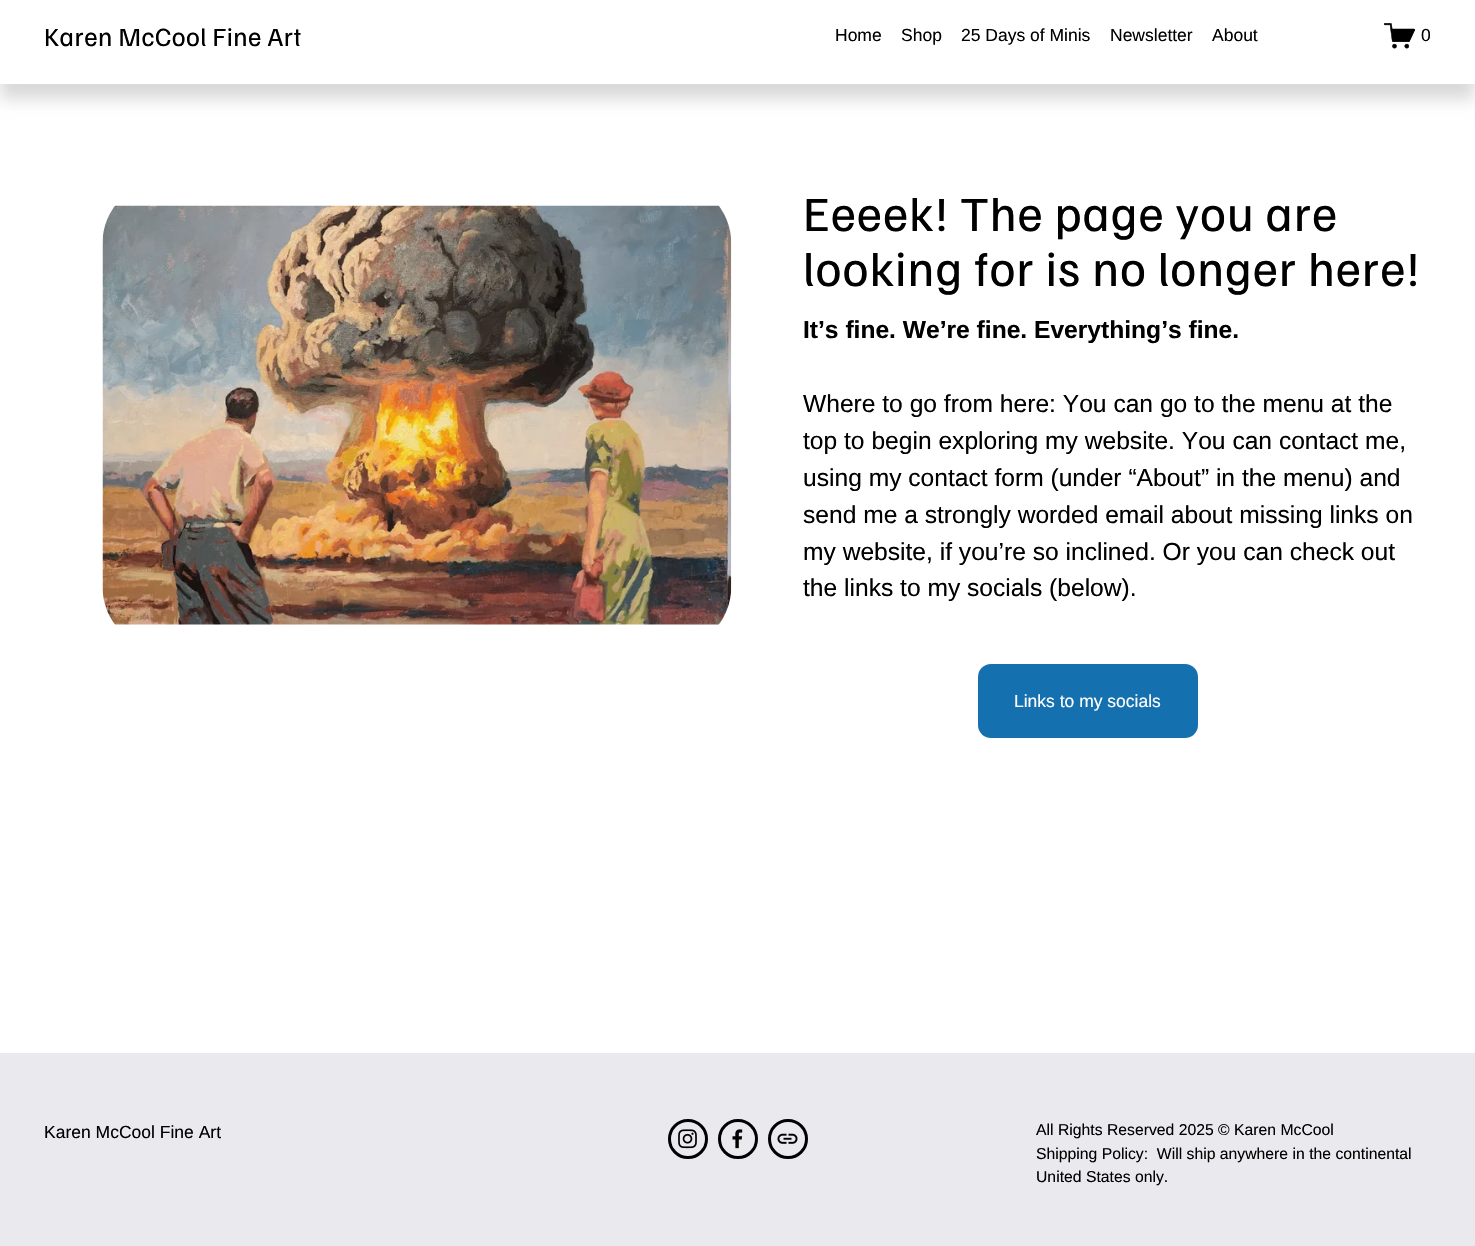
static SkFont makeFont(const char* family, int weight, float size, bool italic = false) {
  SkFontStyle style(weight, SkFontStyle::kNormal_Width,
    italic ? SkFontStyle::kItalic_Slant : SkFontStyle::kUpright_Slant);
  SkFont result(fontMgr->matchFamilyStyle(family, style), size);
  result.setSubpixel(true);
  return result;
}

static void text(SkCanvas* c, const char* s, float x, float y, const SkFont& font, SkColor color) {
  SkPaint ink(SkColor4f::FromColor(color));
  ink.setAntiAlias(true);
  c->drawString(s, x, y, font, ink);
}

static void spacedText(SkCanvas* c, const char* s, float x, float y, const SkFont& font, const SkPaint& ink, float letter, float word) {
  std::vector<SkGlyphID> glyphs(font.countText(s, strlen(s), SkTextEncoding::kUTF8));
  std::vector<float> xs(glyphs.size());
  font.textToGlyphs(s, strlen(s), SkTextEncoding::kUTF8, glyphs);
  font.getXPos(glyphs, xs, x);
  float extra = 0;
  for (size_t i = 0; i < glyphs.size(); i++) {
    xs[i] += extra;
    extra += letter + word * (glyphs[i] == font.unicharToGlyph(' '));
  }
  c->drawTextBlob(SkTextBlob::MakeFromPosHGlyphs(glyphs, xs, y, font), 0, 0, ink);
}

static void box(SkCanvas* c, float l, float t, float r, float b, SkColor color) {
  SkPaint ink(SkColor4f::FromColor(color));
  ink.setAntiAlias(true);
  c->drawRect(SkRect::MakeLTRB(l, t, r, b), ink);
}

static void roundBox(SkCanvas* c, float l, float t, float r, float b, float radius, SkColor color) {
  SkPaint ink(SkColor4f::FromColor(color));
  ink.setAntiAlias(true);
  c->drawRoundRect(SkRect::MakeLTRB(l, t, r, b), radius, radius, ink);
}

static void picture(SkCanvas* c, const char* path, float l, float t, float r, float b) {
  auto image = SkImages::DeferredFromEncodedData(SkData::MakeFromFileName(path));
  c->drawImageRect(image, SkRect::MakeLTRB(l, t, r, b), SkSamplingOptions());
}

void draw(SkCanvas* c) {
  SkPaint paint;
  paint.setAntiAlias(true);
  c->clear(0xffffffff);
  c->save();
  c->clipPath(SkPathBuilder(SkPathFillType::kEvenOdd).moveTo(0, 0).lineTo(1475, 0).lineTo(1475, 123).lineTo(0, 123).close().moveTo(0, -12).lineTo(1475, -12).lineTo(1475, 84).lineTo(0, 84).close().detach(), true);
  paint.setColor(0xffd9d9d9);
  paint.setMaskFilter(SkMaskFilter::MakeBlur(kNormal_SkBlurStyle, 7.5f));
  c->drawRect(SkRect::MakeLTRB(0, 3, 1475, 99), paint);
  paint.setMaskFilter(nullptr);
  c->restore();
  SkFont face1 = makeFont("Familjen Grotesk", 400, 26.25f);
  paint.setColor(0xff000000);
  spacedText(c, "Karen McCool Fine Art", 44, 46, face1, paint, 0.5f, 0);
  SkFont face2 = makeFont("Arimo", 400, 17.5f);
  text(c, "Home", 835, 41, face2, 0xff000000);
  text(c, "Shop", 901, 41, face2, 0xff000000);
  text(c, "25 Days of Minis", 961, 41, face2, 0xff000000);
  text(c, "Newsletter", 1110, 41, face2, 0xff000000);
  text(c, "About", 1212, 41, face2, 0xff000000);
  picture(c, "img_01.png", 1384, 23, 1415, 49);
  text(c, "0", 1421, 41, face2, 0xff000000);
  picture(c, "img_02.png", 102, 205, 732, 625);
  SkFont face3 = makeFont("Familjen Grotesk", 400, 49.4f);
  spacedText(c, "Eeeek! The page you are", 803, 231, face3, paint, 1, 0);
  spacedText(c, "looking for is no longer here!", 803, 286, face3, paint, 1, 0);
  SkFont face4 = makeFont("Arimo", 700, 24.6f);
  text(c, "It’s fine. We’re fine. Everything’s fine.", 803, 338, face4, 0xff000000);
  SkFont face5 = makeFont("Arimo", 400, 24.6f);
  text(c, "Where to go from here: You can go to the menu at the", 803, 412, face5, 0xff000000);
  text(c, "top to begin exploring my website. You can contact me,", 803, 449, face5, 0xff000000);
  text(c, "using my contact form (under “About” in the menu) and", 803, 486, face5, 0xff000000);
  text(c, "send me a strongly worded email about missing links on", 803, 523, face5, 0xff000000);
  text(c, "my website, if you’re so inclined. Or you can check out", 803, 560, face5, 0xff000000);
  text(c, "the links to my socials (below).", 803, 596, face5, 0xff000000);
  roundBox(c, 978, 664, 1198, 738, 13, 0xff1470af);
  text(c, "Links to my socials", 1014, 707, face2, 0xffffffff);
  box(c, 0, 1053, 1475, 1246, 0xffeaeaee);
  text(c, "Karen McCool Fine Art", 44, 1138, face2, 0xff000000);
  paint.setStyle(SkPaint::kStroke_Style);
  paint.setStrokeWidth(3);
  c->drawCircle(688, 1139, 18.5f, paint);
  picture(c, "img_03.png", 678, 1129, 697, 1149);
  c->drawCircle(738, 1139, 18.5f, paint);
  picture(c, "img_04.png", 732, 1129, 743, 1149);
  c->drawCircle(788, 1139, 18.5f, paint);
  picture(c, "img_05.png", 777, 1133, 798, 1144);
  SkFont face6 = makeFont("Arimo", 400, 15.75f);
  text(c, "All Rights Reserved 2025 © Karen McCool", 1036, 1135, face6, 0xff000000);
  text(c, "Shipping Policy:  Will ship anywhere in the continental", 1036, 1159, face6, 0xff000000);
  text(c, "United States only.", 1036, 1182, face6, 0xff000000);
}
